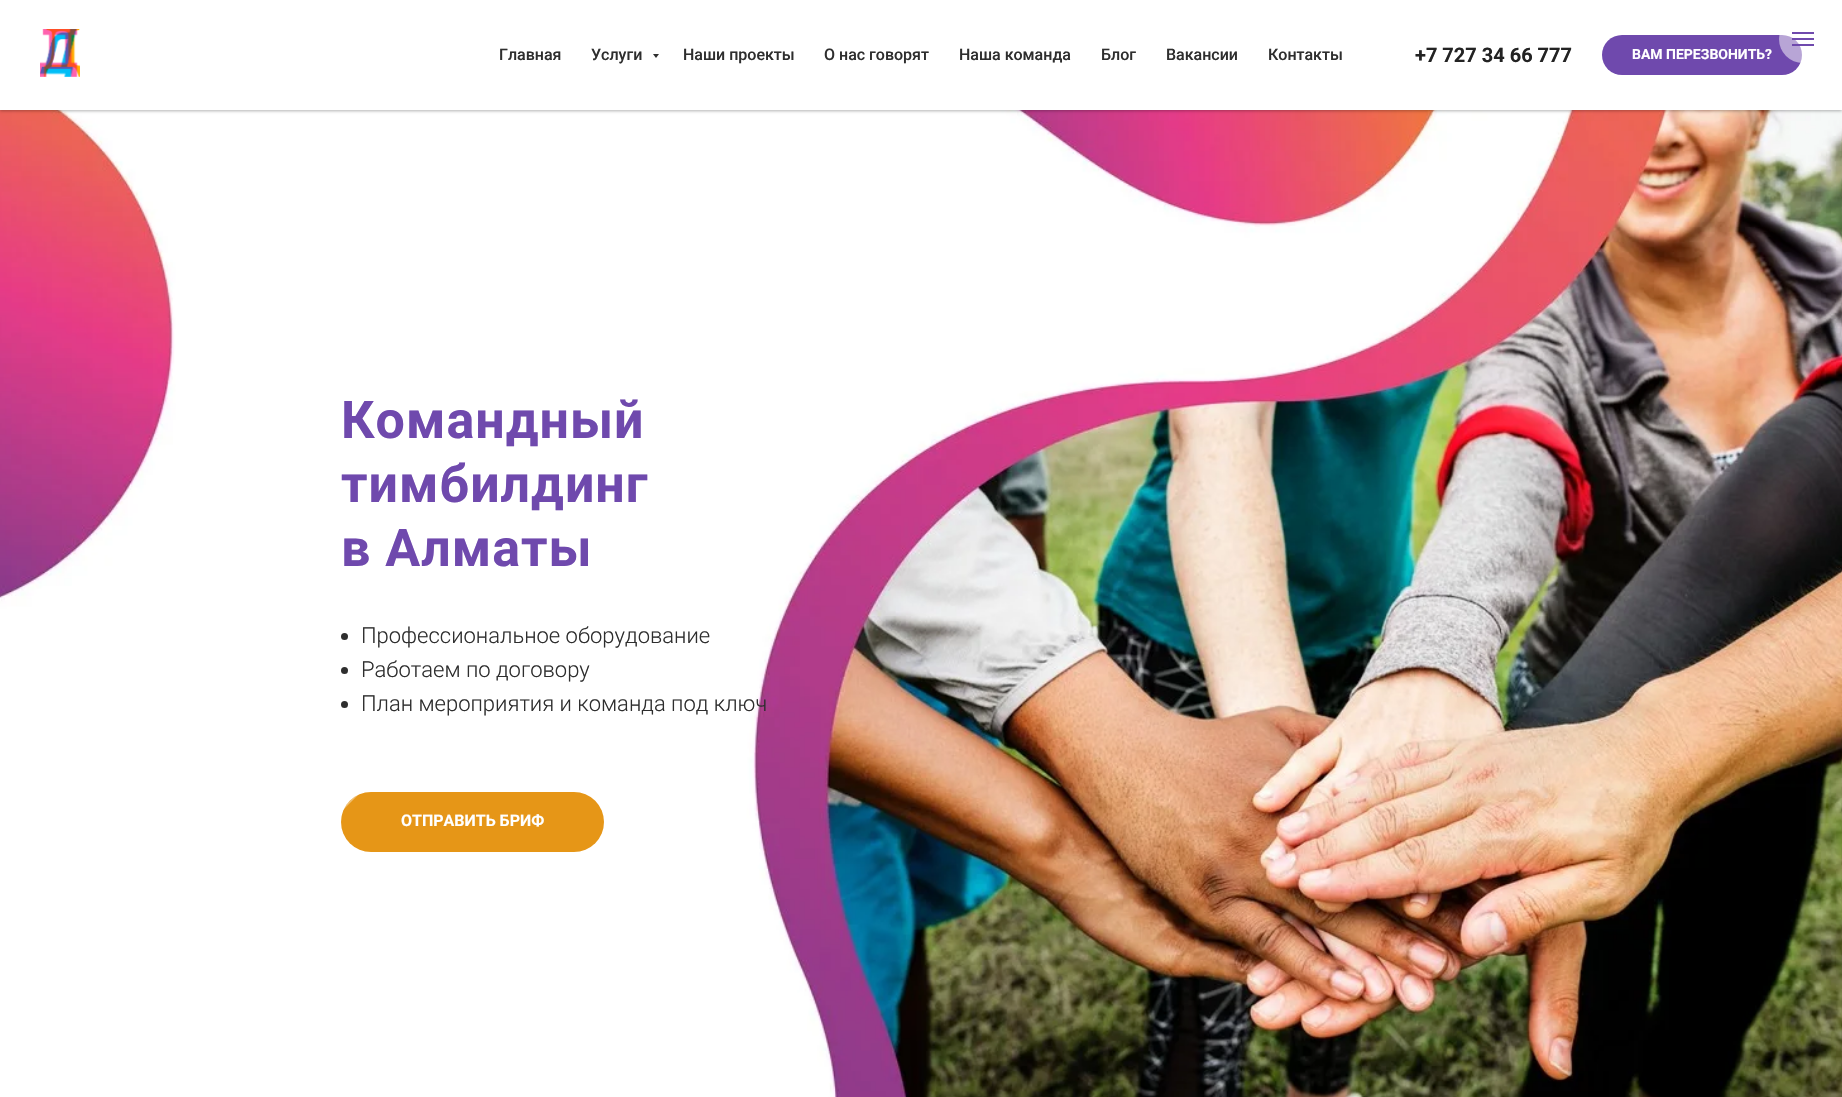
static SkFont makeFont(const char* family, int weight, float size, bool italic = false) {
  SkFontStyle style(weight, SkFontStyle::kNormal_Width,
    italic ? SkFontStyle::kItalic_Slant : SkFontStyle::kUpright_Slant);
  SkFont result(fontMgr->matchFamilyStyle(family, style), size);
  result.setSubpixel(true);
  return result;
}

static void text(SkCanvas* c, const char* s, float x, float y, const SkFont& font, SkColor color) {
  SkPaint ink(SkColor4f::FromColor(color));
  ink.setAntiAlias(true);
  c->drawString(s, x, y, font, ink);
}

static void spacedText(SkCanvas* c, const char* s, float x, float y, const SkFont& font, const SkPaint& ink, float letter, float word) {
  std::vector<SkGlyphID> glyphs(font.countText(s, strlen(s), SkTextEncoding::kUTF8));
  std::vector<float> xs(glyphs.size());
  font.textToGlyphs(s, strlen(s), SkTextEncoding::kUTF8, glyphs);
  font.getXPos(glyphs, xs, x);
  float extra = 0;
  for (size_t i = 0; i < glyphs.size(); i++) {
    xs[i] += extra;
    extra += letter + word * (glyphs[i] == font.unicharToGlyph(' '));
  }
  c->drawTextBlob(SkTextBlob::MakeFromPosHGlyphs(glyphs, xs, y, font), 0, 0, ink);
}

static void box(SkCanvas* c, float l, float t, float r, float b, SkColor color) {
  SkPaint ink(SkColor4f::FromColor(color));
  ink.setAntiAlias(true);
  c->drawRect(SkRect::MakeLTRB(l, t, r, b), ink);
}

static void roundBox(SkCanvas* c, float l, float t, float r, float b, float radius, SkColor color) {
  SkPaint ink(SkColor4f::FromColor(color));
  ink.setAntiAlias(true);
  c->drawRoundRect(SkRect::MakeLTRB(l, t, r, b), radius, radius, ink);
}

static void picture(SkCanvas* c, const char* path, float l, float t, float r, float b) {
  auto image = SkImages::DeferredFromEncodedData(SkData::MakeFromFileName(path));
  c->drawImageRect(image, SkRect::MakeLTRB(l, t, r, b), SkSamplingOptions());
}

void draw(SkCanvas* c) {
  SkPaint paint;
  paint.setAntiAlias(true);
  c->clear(0xffffffff);
  picture(c, "img_02.png", 0, 110, 1842, 1097);
  paint.setColor(0x4d000000);
  paint.setMaskFilter(SkMaskFilter::MakeBlur(kNormal_SkBlurStyle, 1.5f));
  c->drawRect(SkRect::MakeLTRB(0, 1, 1842, 111), paint);
  paint.setMaskFilter(nullptr);
  box(c, 0, 0, 1842, 110, 0xffffffff);
  picture(c, "img_01.png", 40, 29, 80, 77);
  SkFont face1 = makeFont("Roboto", 500, 16);
  text(c, "Главная", 499, 60, face1, 0xff2e2e2e);
  text(c, "Услуги", 591, 60, face1, 0xff2e2e2e);
  paint.setColor(0xff2e2e2e);
  c->drawPath(SkPathBuilder().moveTo(653, 54).lineTo(659, 54).lineTo(656, 58).close().detach(), paint);
  text(c, "Наши проекты", 683, 60, face1, 0xff2e2e2e);
  text(c, "О нас говорят", 824, 60, face1, 0xff2e2e2e);
  text(c, "Наша команда", 959, 60, face1, 0xff2e2e2e);
  text(c, "Блог", 1101, 60, face1, 0xff2e2e2e);
  text(c, "Вакансии", 1166, 60, face1, 0xff2e2e2e);
  text(c, "Контакты", 1268, 60, face1, 0xff2e2e2e);
  SkFont face2 = makeFont("Roboto", 700, 20);
  text(c, "+7 727 34 66 777", 1415, 62, face2, 0xff232323);
  roundBox(c, 1602, 35, 1802, 75, 20, 0xff6f49ad);
  SkFont face3 = makeFont("Roboto", 700, 14);
  text(c, "ВАМ ПЕРЕЗВОНИТЬ?", 1632, 59, face3, 0xffffffff);
  paint.setColor(0x80ffffff);
  c->drawCircle(1803, 39, 24, paint);
  box(c, 1792, 32, 1814, 34, 0xff6f49ad);
  box(c, 1792, 38, 1814, 40, 0xff6f49ad);
  box(c, 1792, 44, 1814, 46, 0xff6f49ad);
  SkFont face4 = makeFont("Roboto", 700, 52);
  paint.setColor(0xff6f49ad);
  spacedText(c, "Командный", 341, 438, face4, paint, 1, 0);
  spacedText(c, "тимбилдинг", 341, 502, face4, paint, 1, 0);
  spacedText(c, "в Алматы", 341, 566, face4, paint, 1, 0);
  paint.setColor(0xff2e2e2e);
  c->drawCircle(344.5f, 636.5f, 3.5f, paint);
  SkFont face5 = makeFont("Roboto", 300, 22);
  text(c, "Профессиональное оборудование", 361, 643, face5, 0xff2e2e2e);
  c->drawCircle(344.5f, 670.5f, 3.5f, paint);
  text(c, "Работаем по договору", 361, 677, face5, 0xff2e2e2e);
  c->drawCircle(344.5f, 704.5f, 3.5f, paint);
  text(c, "План мероприятия и команда под ключ", 361, 711, face5, 0xff2e2e2e);
  roundBox(c, 341, 792, 604, 852, 30, 0xffe69617);
  {
    const SkColor colors[] = {0x1affffff, 0x66ffffff};
    const float stops[] = {0, 1};
    const SkPoint ends[] = {{286, 822}, {331, 822}};
    paint.setShader(SkGradientShader::MakeLinear(ends, colors, stops, 2, SkTileMode::kClamp));
    paint.setAlpha(255);
  }
  c->drawPath(SkPathBuilder().moveTo(358, 795).lineTo(344, 809).cubicTo(347, 803, 352, 798, 358, 795).close().detach(), paint);
  SkFont face6 = makeFont("Roboto", 700, 16);
  text(c, "ОТПРАВИТЬ БРИФ", 401, 826, face6, 0xffffffff);
}
